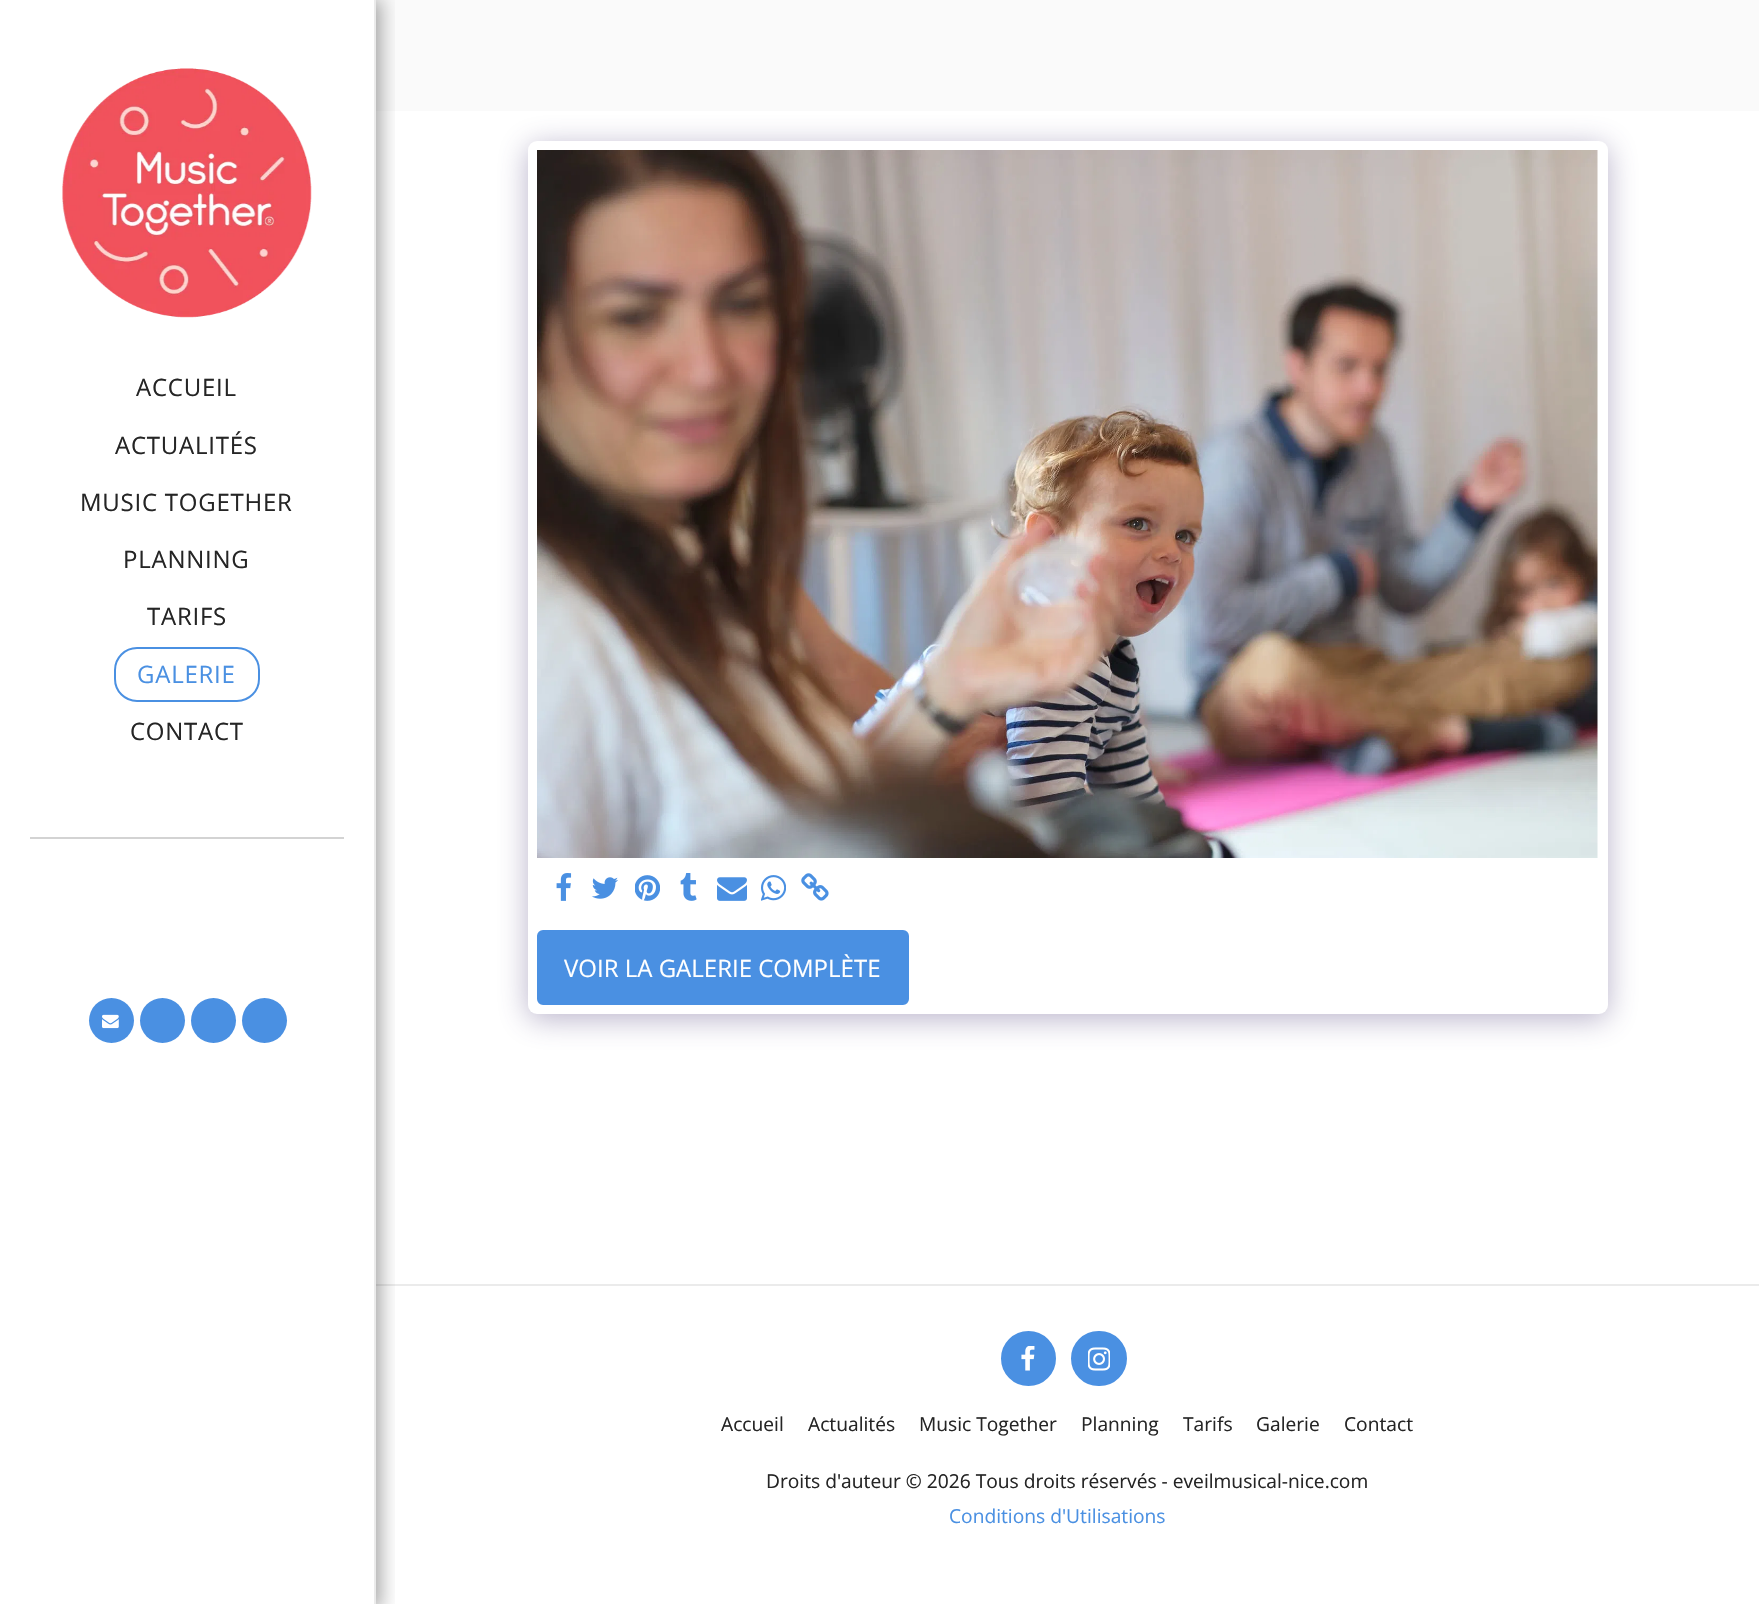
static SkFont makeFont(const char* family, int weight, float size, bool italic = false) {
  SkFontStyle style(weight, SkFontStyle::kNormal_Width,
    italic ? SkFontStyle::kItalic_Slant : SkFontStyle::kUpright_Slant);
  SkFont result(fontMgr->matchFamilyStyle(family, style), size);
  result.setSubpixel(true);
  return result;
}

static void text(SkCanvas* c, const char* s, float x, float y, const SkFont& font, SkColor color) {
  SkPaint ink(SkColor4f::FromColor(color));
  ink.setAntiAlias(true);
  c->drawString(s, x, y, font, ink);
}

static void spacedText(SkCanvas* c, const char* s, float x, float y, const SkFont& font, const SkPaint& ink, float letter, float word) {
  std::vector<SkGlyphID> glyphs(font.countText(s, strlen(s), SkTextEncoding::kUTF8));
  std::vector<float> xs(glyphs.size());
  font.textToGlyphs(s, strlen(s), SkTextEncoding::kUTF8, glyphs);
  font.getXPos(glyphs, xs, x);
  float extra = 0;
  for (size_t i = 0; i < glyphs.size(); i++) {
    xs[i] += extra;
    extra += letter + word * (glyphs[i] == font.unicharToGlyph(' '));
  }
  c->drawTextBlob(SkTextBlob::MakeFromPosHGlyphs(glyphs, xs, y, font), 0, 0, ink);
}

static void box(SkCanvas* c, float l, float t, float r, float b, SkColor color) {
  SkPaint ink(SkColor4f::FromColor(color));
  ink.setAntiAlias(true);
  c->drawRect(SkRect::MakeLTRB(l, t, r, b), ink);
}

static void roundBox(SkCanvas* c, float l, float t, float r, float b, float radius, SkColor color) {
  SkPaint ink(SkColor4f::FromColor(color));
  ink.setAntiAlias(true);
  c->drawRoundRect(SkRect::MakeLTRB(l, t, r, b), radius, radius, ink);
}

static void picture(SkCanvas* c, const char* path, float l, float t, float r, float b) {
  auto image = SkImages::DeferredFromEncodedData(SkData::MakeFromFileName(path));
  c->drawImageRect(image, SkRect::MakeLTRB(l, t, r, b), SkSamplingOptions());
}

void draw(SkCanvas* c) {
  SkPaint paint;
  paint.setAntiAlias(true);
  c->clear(0xffffffff);
  box(c, 376, 0, 1759, 111, 0xfffafafa);
  box(c, 375, 1284, 1759, 1286, 0xffebebeb);
  c->save();
  c->clipRect(SkRect::MakeLTRB(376, 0, 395, 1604));
  paint.setColor(0x59000000);
  paint.setMaskFilter(SkMaskFilter::MakeBlur(kNormal_SkBlurStyle, 9));
  c->drawRect(SkRect::MakeLTRB(0, -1, 381, 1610), paint);
  paint.setMaskFilter(nullptr);
  c->restore();
  box(c, 374, 0, 376, 1604, 0xffebebeb);
  picture(c, "img_01.png", 62, 68, 312, 318);
  SkFont face1 = makeFont("Open Sans", 400, 24);
  paint.setColor(0xff252525);
  spacedText(c, "ACCUEIL", 136, 396, face1, paint, 0.75f, 0);
  spacedText(c, "ACTUALITÉS", 115, 454, face1, paint, 0.75f, 0);
  spacedText(c, "MUSIC TOGETHER", 80, 511, face1, paint, 0.75f, 0);
  spacedText(c, "PLANNING", 123, 568, face1, paint, 0.75f, 0);
  spacedText(c, "TARIFS", 147, 625, face1, paint, 0.75f, 0);
  paint.setStyle(SkPaint::kStroke_Style);
  paint.setStrokeWidth(2);
  paint.setColor(0xff4a90e2);
  c->drawRoundRect(SkRect::MakeLTRB(115, 648, 259, 701), 22, 22, paint);
  paint.setStyle(SkPaint::kFill_Style);
  spacedText(c, "GALERIE", 137, 683, face1, paint, 0.75f, 0);
  paint.setColor(0xff252525);
  spacedText(c, "CONTACT", 130, 740, face1, paint, 0.75f, 0);
  box(c, 30, 837, 344, 839, 0xffd3d3d3);
  paint.setColor(0xff4a90e2);
  c->drawCircle(111.5f, 1020.5f, 22.5f, paint);
  picture(c, "img_02.png", 102, 1014, 119, 1029);
  c->drawCircle(162.5f, 1020.5f, 22.5f, paint);
  c->drawCircle(213.5f, 1020.5f, 22.5f, paint);
  c->drawCircle(264.5f, 1020.5f, 22.5f, paint);
  paint.setColor(0x664d3f7a);
  paint.setMaskFilter(SkMaskFilter::MakeBlur(kNormal_SkBlurStyle, 15));
  c->drawRoundRect(SkRect::MakeLTRB(528, 146, 1608, 1019), 9, 9, paint);
  paint.setMaskFilter(nullptr);
  roundBox(c, 528, 141, 1608, 1014, 9, 0xffffffff);
  picture(c, "img_03.png", 537, 150, 1598, 858);
  picture(c, "img_04.png", 556, 873, 572, 901);
  picture(c, "img_05.png", 591, 877, 618, 899);
  picture(c, "img_06.png", 635, 875, 660, 901);
  picture(c, "img_07.png", 680, 873, 697, 901);
  picture(c, "img_08.png", 717, 877, 747, 901);
  picture(c, "img_09.png", 761, 875, 786, 901);
  picture(c, "img_10.png", 801, 873, 829, 901);
  paint.setColor(0xff4a90e2);
  c->drawRoundRect(SkRect::MakeLTRB(538, 931, 908, 1004), 5, 5, paint);
  paint.setStyle(SkPaint::kStroke_Style);
  c->drawRoundRect(SkRect::MakeLTRB(538, 931, 908, 1004), 5, 5, paint);
  text(c, "VOIR LA GALERIE COMPLÈTE", 564, 977, face1, 0xffffffff);
  paint.setStyle(SkPaint::kFill_Style);
  c->drawCircle(1028.5f, 1358.5f, 26.5f, paint);
  paint.setStyle(SkPaint::kStroke_Style);
  c->drawCircle(1028.5f, 1358.5f, 26.5f, paint);
  picture(c, "img_11.png", 1021, 1346, 1035, 1371);
  paint.setStyle(SkPaint::kFill_Style);
  c->drawRoundRect(SkRect::MakeLTRB(1072, 1332, 1126, 1385), 26.5f, 26.5f, paint);
  paint.setStyle(SkPaint::kStroke_Style);
  c->drawRoundRect(SkRect::MakeLTRB(1072, 1332, 1126, 1385), 26.5f, 26.5f, paint);
  picture(c, "img_12.png", 1088, 1347, 1110, 1371);
  SkFont face2 = makeFont("Open Sans", 400, 19.2f);
  text(c, "Accueil", 721, 1431, face2, 0xff252525);
  text(c, "Actualités", 808, 1431, face2, 0xff252525);
  text(c, "Music Together", 919, 1431, face2, 0xff252525);
  text(c, "Planning", 1081, 1431, face2, 0xff252525);
  text(c, "Tarifs", 1183, 1431, face2, 0xff252525);
  text(c, "Galerie", 1256, 1431, face2, 0xff252525);
  text(c, "Contact", 1344, 1431, face2, 0xff252525);
  text(c, "Droits d'auteur © 2026 Tous droits réservés - eveilmusical-nice.com", 766, 1488, face2, 0xff252525);
  text(c, "Conditions d'Utilisations", 949, 1523, face2, 0xff4a90e2);
}
